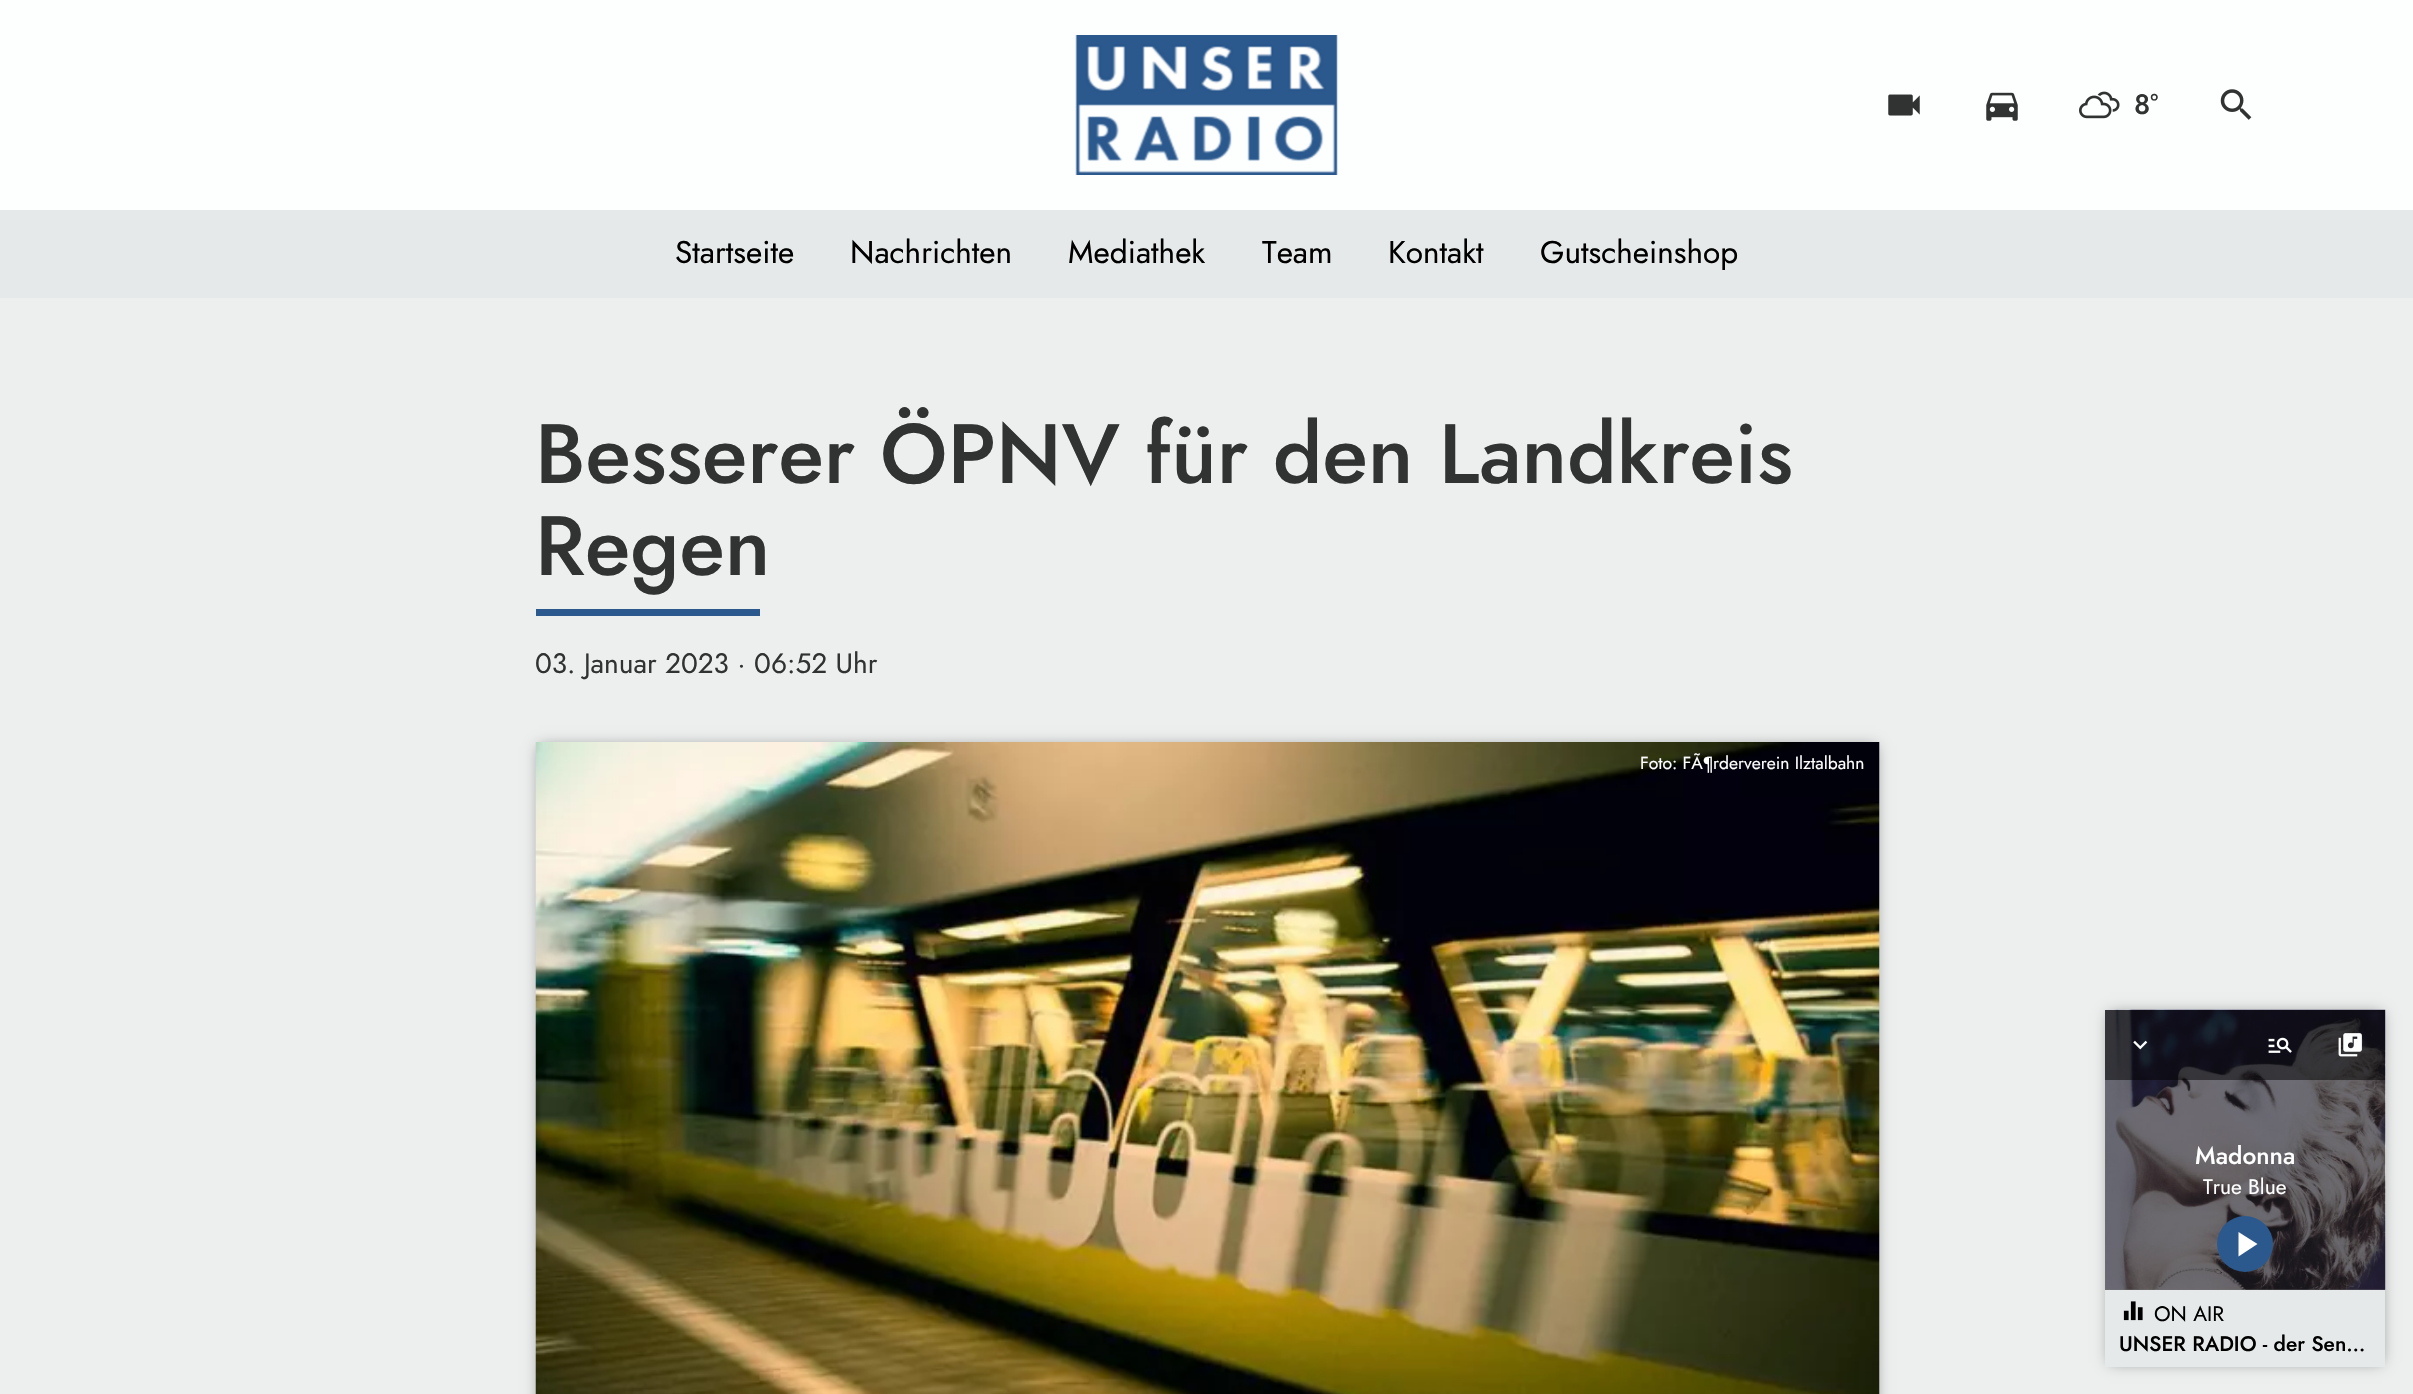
static SkFont makeFont(const char* family, int weight, float size, bool italic = false) {
  SkFontStyle style(weight, SkFontStyle::kNormal_Width,
    italic ? SkFontStyle::kItalic_Slant : SkFontStyle::kUpright_Slant);
  SkFont result(fontMgr->matchFamilyStyle(family, style), size);
  result.setSubpixel(true);
  return result;
}

static void text(SkCanvas* c, const char* s, float x, float y, const SkFont& font, SkColor color) {
  SkPaint ink(SkColor4f::FromColor(color));
  ink.setAntiAlias(true);
  c->drawString(s, x, y, font, ink);
}

static void box(SkCanvas* c, float l, float t, float r, float b, SkColor color) {
  SkPaint ink(SkColor4f::FromColor(color));
  ink.setAntiAlias(true);
  c->drawRect(SkRect::MakeLTRB(l, t, r, b), ink);
}

static void picture(SkCanvas* c, const char* path, float l, float t, float r, float b) {
  auto image = SkImages::DeferredFromEncodedData(SkData::MakeFromFileName(path));
  c->drawImageRect(image, SkRect::MakeLTRB(l, t, r, b), SkSamplingOptions());
}

void draw(SkCanvas* c) {
  SkPaint paint;
  paint.setAntiAlias(true);
  c->clear(0xfffdffff);
  picture(c, "img_01.png", 1075, 35, 1338, 175);
  picture(c, "img_02.png", 1888, 94, 1920, 116);
  picture(c, "img_03.png", 1986, 92, 2018, 121);
  picture(c, "img_04.png", 2079, 91, 2120, 119);
  SkFont face1 = makeFont("Jost", 500, 28);
  text(c, "8°", 2134, 114, face1, 0xff313333);
  picture(c, "img_05.png", 2220, 89, 2252, 120);
  box(c, 0, 210, 2413, 298, 0xffe5e9e9);
  SkFont face2 = makeFont("Jost", 400, 31.5f);
  text(c, "Startseite", 675, 263, face2, 0xff000000);
  text(c, "Nachrichten", 850, 263, face2, 0xff000000);
  text(c, "Mediathek", 1068, 263, face2, 0xff000000);
  text(c, "Team", 1262, 263, face2, 0xff000000);
  text(c, "Kontakt", 1388, 263, face2, 0xff000000);
  text(c, "Gutscheinshop", 1540, 263, face2, 0xff000000);
  box(c, 0, 298, 2413, 1394, 0xffedefef);
  SkFont face3 = makeFont("Jost", 500, 84);
  text(c, "Besserer ÖPNV für den Landkreis", 535, 483, face3, 0xff313333);
  text(c, "Regen", 535, 575, face3, 0xff313333);
  box(c, 536, 609, 760, 616, 0xff2b598e);
  SkFont face4 = makeFont("Jost", 400, 28);
  text(c, "03. Januar 2023 · 06:52 Uhr", 535, 673, face4, 0xff313333);
  paint.setColor(0x66000000);
  paint.setMaskFilter(SkMaskFilter::MakeBlur(kNormal_SkBlurStyle, 7));
  c->drawRect(SkRect::MakeLTRB(539, 746, 1876, 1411), paint);
  paint.setMaskFilter(nullptr);
  picture(c, "img_06.png", 535, 742, 1880, 1394);
  SkFont face5 = makeFont("Jost", 400, 17.5f);
  text(c, "Foto: FÃ¶rderverein Ilztalbahn", 1640, 769, face5, 0xffffffff);
  paint.setMaskFilter(SkMaskFilter::MakeBlur(kNormal_SkBlurStyle, 7));
  c->drawRect(SkRect::MakeLTRB(2109, 1013, 2382, 1363), paint);
  paint.setMaskFilter(nullptr);
  box(c, 2105, 1010, 2385, 1290, 0xffe8ebeb);
  picture(c, "img_10.png", 2105, 1009, 2386, 1290);
  box(c, 2105, 1010, 2385, 1290, 0x80000000);
  box(c, 2105, 1010, 2385, 1080, 0x80000000);
  picture(c, "img_07.png", 2133, 1040, 2148, 1050);
  picture(c, "img_08.png", 2268, 1037, 2292, 1053);
  picture(c, "img_09.png", 2338, 1033, 2362, 1057);
  SkFont face6 = makeFont("Jost", 500, 24.5f);
  text(c, "Madonna", 2195, 1164, face6, 0xffffffff);
  SkFont face7 = makeFont("Jost", 400, 21);
  text(c, "True Blue", 2203, 1194, face7, 0xffffffff);
  paint.setColor(0xff2b598e);
  c->drawCircle(2245, 1244, 28, paint);
  paint.setColor(0xffffffff);
  c->drawPath(SkPathBuilder().moveTo(2238.5f, 1232).lineTo(2257.5f, 1244).lineTo(2238.5f, 1256.5f).close().detach(), paint);
  box(c, 2105, 1290, 2385, 1367, 0xffe5e9e9);
  picture(c, "img_11.png", 2123, 1301, 2143, 1321);
  text(c, "ON AIR", 2154, 1321, face7, 0xff000000);
  SkFont face8 = makeFont("Jost", 500, 21);
  text(c, "UNSER RADIO - der Sen…", 2119, 1351, face8, 0xff000000);
}
